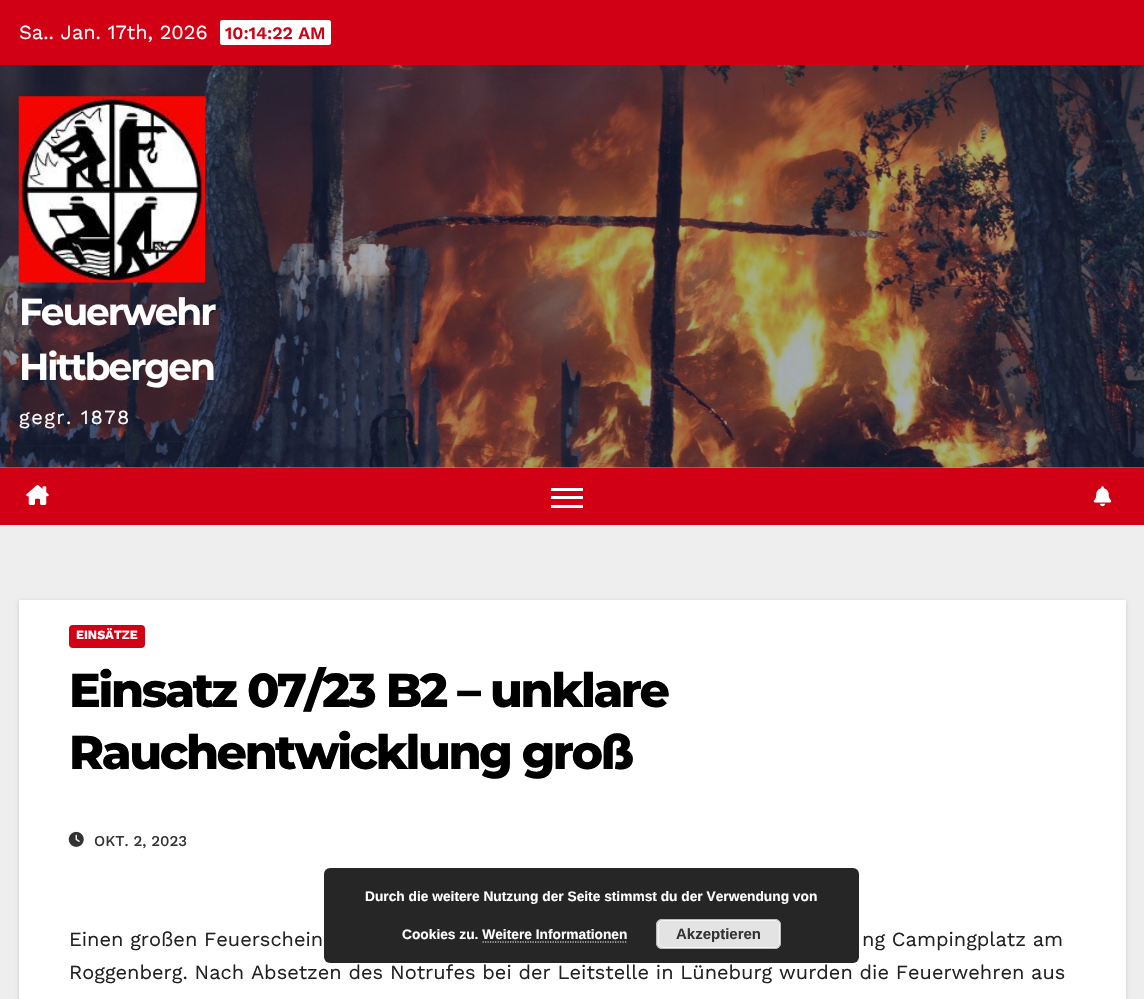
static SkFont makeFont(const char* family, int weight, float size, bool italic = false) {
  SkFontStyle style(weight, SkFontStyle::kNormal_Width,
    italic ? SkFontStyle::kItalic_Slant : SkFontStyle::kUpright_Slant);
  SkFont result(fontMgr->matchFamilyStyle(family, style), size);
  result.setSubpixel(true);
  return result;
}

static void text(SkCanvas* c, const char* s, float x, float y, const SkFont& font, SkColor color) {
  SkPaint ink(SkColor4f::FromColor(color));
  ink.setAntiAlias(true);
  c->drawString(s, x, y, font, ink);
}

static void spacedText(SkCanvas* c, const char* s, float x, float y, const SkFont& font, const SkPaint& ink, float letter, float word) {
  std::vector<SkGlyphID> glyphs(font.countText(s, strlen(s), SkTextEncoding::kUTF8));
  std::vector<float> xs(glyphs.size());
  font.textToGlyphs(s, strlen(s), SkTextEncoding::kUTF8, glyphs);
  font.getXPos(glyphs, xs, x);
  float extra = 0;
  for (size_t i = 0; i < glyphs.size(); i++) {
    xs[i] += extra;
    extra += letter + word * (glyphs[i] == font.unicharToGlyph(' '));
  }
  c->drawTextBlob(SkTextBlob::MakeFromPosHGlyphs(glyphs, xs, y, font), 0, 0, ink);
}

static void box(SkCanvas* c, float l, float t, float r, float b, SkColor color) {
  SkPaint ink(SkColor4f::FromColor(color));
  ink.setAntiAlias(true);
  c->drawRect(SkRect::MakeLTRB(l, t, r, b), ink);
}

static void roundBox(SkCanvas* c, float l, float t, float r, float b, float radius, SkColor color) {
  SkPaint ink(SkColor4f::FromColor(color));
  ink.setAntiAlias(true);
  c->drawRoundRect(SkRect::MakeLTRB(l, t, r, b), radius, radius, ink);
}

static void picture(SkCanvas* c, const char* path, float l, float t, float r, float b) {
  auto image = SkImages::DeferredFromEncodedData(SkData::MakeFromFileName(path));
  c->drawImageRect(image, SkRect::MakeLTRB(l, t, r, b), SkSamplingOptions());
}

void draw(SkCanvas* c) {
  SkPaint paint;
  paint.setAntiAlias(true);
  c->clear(0xffeeeeee);
  box(c, 0, 467, 1144, 468, 0xff9ca2b3);
  box(c, 0, 0, 1144, 65, 0xffd10014);
  SkFont face1 = makeFont("Work Sans", 400, 20);
  text(c, "Sa.. Jan. 17th, 2026", 19, 39, face1, 0xffffffff);
  roundBox(c, 220, 20, 331, 45, 2.5f, 0xffffffff);
  SkFont face2 = makeFont("Work Sans", 600, 17.5f);
  text(c, "10:14:22 AM", 225, 39, face2, 0xffd10014);
  picture(c, "img_01.png", 0, 65, 1144, 468);
  picture(c, "img_02.png", 18, 96, 205, 283);
  SkFont face3 = makeFont("Montserrat", 700, 37.5f);
  paint.setColor(0xffffffff);
  spacedText(c, "Feuerwehr", 19, 325, face3, paint, -2.1f, 0);
  spacedText(c, "Hittbergen", 19, 380, face3, paint, -2.1f, 0);
  spacedText(c, "gegr. 1878", 19, 424, face1, paint, 1.5f, 0);
  box(c, 0, 468, 1144, 525, 0xffd10014);
  picture(c, "img_03.png", 26, 485, 49, 505);
  box(c, 551, 488, 583, 491, 0xffffffff);
  box(c, 551, 496, 583, 499, 0xffffffff);
  box(c, 551, 505, 583, 508, 0xffffffff);
  picture(c, "img_04.png", 1093, 486, 1112, 507);
  paint.setColor(0x26000000);
  paint.setMaskFilter(SkMaskFilter::MakeBlur(kNormal_SkBlurStyle, 2));
  c->drawRect(SkRect::MakeLTRB(19, 601, 1126, 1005), paint);
  paint.setMaskFilter(nullptr);
  box(c, 19, 600, 1126, 999, 0xffffffff);
  roundBox(c, 69, 625, 145, 648, 4, 0xffd10014);
  SkFont face4 = makeFont("Work Sans", 700, 12.5f);
  text(c, "EINSÄTZE", 76, 639, face4, 0xffffffff);
  SkFont face5 = makeFont("Montserrat", 800, 47.5f);
  paint.setColor(0xff000000);
  spacedText(c, "Einsatz 07/23 B2 – unklare", 69, 707, face5, paint, -2.4f, 0);
  spacedText(c, "Rauchentwicklung groß", 69, 769, face5, paint, -2.4f, 0);
  picture(c, "img_05.png", 68, 831, 84, 847);
  SkFont face6 = makeFont("Work Sans", 500, 15);
  text(c, "OKT. 2, 2023", 94, 846, face6, 0xff333333);
  text(c, "Einen großen Feuerschein", 69, 946, face1, 0xff222222);
  text(c, "ng Campingplatz am", 862, 946, face1, 0xff222222);
  text(c, "Roggenberg. Nach Absetzen des Notrufes bei der Leitstelle in Lüneburg wurden die Feuerwehren aus", 69, 979, face1, 0xff222222);
  roundBox(c, 324, 868, 859, 963, 6, 0xd9000000);
  SkFont face7 = makeFont("Liberation Sans", 700, 13.75f);
  text(c, "Durch die weitere Nutzung der Seite stimmst du der Verwendung von", 365, 901, face7, 0xffffffff);
  text(c, "Cookies zu. Weitere Informationen", 402, 939, face7, 0xffffffff);
  roundBox(c, 656, 919, 781, 949, 6, 0xffe3e3e3);
  paint.setStyle(SkPaint::kStroke_Style);
  paint.setStrokeWidth(1);
  paint.setColor(0xfff6f6f6);
  c->drawRoundRect(SkRect::MakeLTRB(658.5f, 920.5f, 779.5f, 947.5f), 4.5f, 4.5f, paint);
  paint.setColor(0xffbbbbbb);
  c->drawRoundRect(SkRect::MakeLTRB(656.5f, 919.5f, 780.5f, 948.5f), 5.5f, 5.5f, paint);
  SkFont face8 = makeFont("Liberation Sans", 700, 15);
  text(c, "Akzeptieren", 676, 939, face8, 0xff333333);
  paint.setStrokeWidth(1.2f);
  paint.setColor(0xffffffff);
  paint.setPathEffect(SkDashPathEffect::Make({{1.25f, 1.25f}}, 0));
  c->drawPath(SkPathBuilder().moveTo(482.5f, 942).lineTo(627.5f, 942).detach(), paint);
  paint.setPathEffect(nullptr);
}
